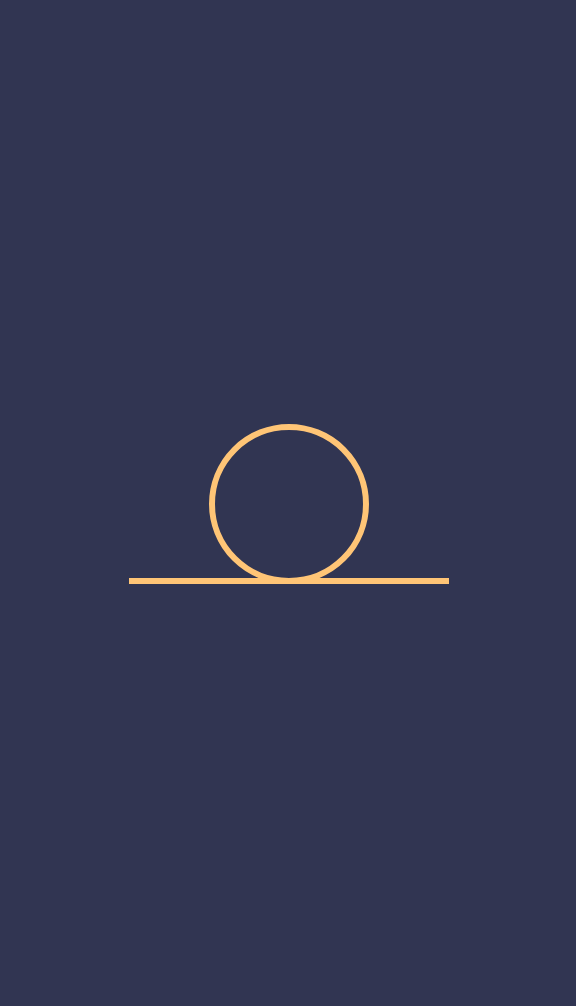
static void box(SkCanvas* c, float l, float t, float r, float b, SkColor color) {
  SkPaint ink(SkColor4f::FromColor(color));
  ink.setAntiAlias(true);
  c->drawRect(SkRect::MakeLTRB(l, t, r, b), ink);
}

void draw(SkCanvas* c) {
  SkPaint paint;
  paint.setAntiAlias(true);
  c->clear(0xff313552);
  box(c, 129, 578, 449, 584, 0xffffc576);
  paint.setStyle(SkPaint::kStroke_Style);
  paint.setStrokeWidth(6);
  paint.setColor(0xffffc576);
  c->drawCircle(289, 504, 77, paint);
}
